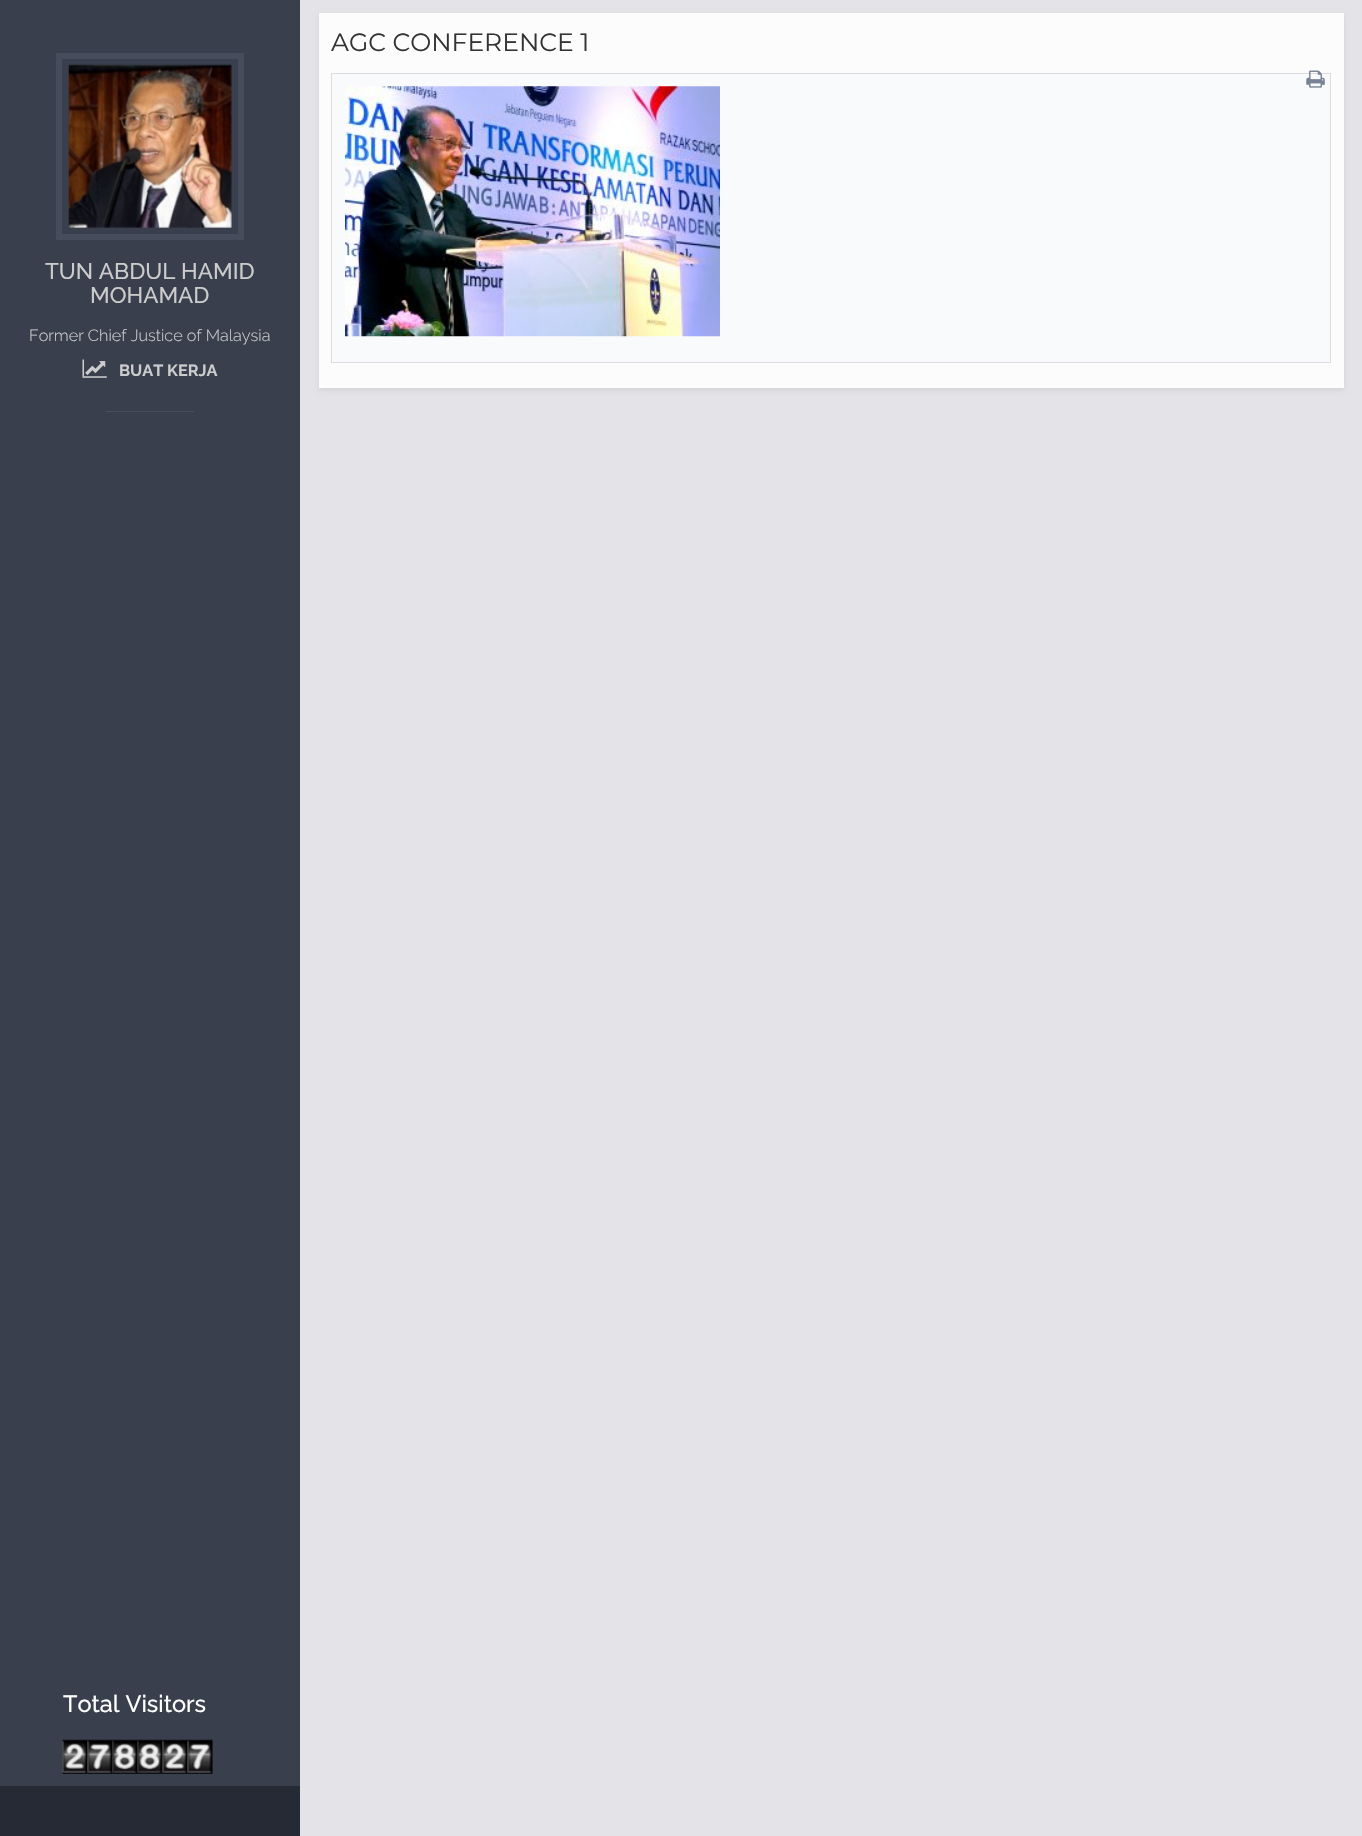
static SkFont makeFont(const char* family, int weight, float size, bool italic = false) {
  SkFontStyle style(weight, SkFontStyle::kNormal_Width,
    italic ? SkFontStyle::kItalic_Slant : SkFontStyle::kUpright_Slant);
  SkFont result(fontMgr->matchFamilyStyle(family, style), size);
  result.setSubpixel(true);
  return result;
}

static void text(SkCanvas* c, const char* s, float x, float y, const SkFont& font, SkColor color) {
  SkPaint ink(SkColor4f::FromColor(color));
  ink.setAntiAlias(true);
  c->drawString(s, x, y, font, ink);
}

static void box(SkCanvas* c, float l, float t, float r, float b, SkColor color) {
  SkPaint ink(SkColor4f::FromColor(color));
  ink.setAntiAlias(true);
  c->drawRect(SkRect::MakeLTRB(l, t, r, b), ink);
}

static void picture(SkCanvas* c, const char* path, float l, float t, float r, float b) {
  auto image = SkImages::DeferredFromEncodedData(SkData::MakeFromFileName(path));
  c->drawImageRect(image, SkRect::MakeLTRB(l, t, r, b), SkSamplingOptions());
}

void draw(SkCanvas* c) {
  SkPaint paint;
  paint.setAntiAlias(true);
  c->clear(0xffe4e4e8);
  paint.setColor(0x14000000);
  paint.setMaskFilter(SkMaskFilter::MakeBlur(kNormal_SkBlurStyle, 2.5f));
  c->drawRect(SkRect::MakeLTRB(319, 15, 1344, 390), paint);
  paint.setMaskFilter(nullptr);
  box(c, 319, 13, 1344, 388, 0xfffcfcfc);
  SkFont face1 = makeFont("Montserrat", 400, 25);
  text(c, "AGC CONFERENCE 1", 331, 51, face1, 0xff333333);
  paint.setColor(0xfff9fafb);
  c->drawRect(SkRect::MakeLTRB(331.5f, 73.5f, 1330.5f, 362.5f), paint);
  paint.setStyle(SkPaint::kStroke_Style);
  paint.setStrokeWidth(1);
  paint.setColor(0xffdbdbe0);
  c->drawRect(SkRect::MakeLTRB(331.5f, 73.5f, 1330.5f, 362.5f), paint);
  picture(c, "img_01.png", 1306, 70, 1325, 88);
  picture(c, "img_02.png", 345, 86, 720, 337);
  box(c, 0, 0, 300, 1786, 0xff393f4d);
  paint.setStrokeWidth(6);
  paint.setColor(0xff454c5b);
  c->drawRect(SkRect::MakeLTRB(59, 56, 241, 237), paint);
  picture(c, "img_03.png", 68, 64, 232, 228);
  SkFont face2 = makeFont("Raleway", 500, 22.5f);
  text(c, "TUN ABDUL HAMID", 45, 279, face2, 0xffcccccc);
  text(c, "MOHAMAD", 90, 303, face2, 0xffcccccc);
  SkFont face3 = makeFont("Raleway", 300, 16.25f);
  text(c, "Former Chief Justice of Malaysia", 29, 341, face3, 0xffcccccc);
  picture(c, "img_04.png", 82, 359, 107, 378);
  SkFont face4 = makeFont("Raleway", 700, 16.25f);
  text(c, "BUAT KERJA", 119, 376, face4, 0xffcccccc);
  box(c, 106, 411, 194, 412, 0xff494f5e);
  box(c, 0, 1786, 300, 1836, 0xff262a34);
  SkFont face5 = makeFont("Raleway", 500, 23.5f);
  text(c, "Total Visitors", 63, 1712, face5, 0xffffffff);
  picture(c, "img_05.png", 62, 1739, 88, 1774);
  picture(c, "img_06.png", 87, 1739, 113, 1774);
  picture(c, "img_07.png", 112, 1739, 138, 1774);
  picture(c, "img_07.png", 137, 1739, 163, 1774);
  picture(c, "img_08.png", 162, 1739, 188, 1774);
  picture(c, "img_09.png", 187, 1739, 213, 1774);
}
